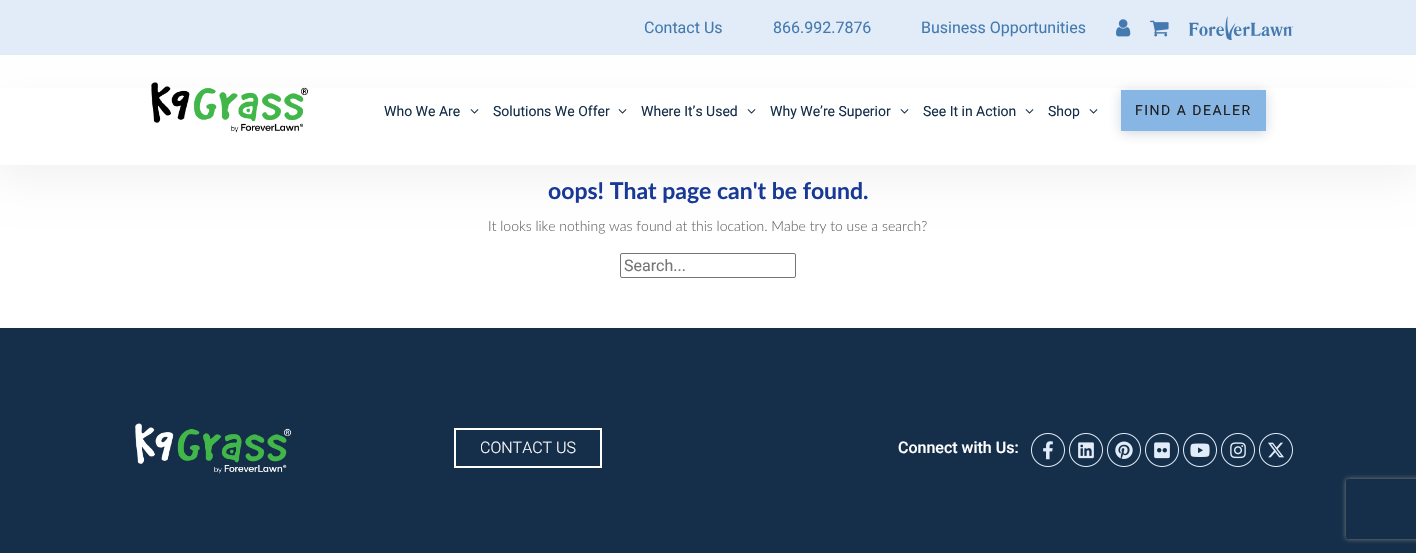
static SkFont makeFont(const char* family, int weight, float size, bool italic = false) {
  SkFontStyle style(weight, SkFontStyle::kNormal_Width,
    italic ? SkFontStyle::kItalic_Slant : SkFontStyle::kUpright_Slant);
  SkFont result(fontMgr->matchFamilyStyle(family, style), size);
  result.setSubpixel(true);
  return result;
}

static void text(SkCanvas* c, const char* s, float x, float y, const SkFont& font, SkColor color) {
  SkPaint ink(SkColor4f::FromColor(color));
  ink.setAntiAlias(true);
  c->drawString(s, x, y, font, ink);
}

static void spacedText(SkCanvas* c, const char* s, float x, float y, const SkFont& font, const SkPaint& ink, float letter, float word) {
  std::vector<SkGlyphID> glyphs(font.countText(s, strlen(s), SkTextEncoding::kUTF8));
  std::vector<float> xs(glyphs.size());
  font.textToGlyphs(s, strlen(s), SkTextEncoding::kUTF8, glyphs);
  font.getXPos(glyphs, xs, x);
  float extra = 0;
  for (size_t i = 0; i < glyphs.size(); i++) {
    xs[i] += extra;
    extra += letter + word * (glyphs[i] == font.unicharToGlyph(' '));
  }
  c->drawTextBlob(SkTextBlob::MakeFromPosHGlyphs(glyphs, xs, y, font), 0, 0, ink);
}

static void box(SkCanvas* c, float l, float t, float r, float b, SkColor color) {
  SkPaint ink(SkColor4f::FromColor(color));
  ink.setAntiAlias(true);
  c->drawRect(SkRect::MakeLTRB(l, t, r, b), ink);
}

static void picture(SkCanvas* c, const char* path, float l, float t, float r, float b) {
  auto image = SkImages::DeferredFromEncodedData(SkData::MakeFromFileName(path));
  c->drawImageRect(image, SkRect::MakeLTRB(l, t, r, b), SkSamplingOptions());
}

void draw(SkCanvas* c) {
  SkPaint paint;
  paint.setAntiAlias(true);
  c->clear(0xffffffff);
  paint.setColor(0x0d000000);
  paint.setMaskFilter(SkMaskFilter::MakeBlur(kNormal_SkBlurStyle, 20));
  c->drawRoundRect(SkRect::MakeLTRB(-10, 105, 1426, 180), 29, 29, paint);
  paint.setMaskFilter(nullptr);
  box(c, 0, 0, 1416, 55, 0xffe1ecf8);
  SkFont face1 = makeFont("Roboto", 400, 16);
  text(c, "Contact Us", 644, 33, face1, 0xff457ab0);
  text(c, "866.992.7876", 773, 33, face1, 0xff457ab0);
  text(c, "Business Opportunities", 921, 33, face1, 0xff457ab0);
  picture(c, "img_01.png", 1116, 19, 1131, 37);
  picture(c, "img_02.png", 1150, 20, 1169, 37);
  picture(c, "img_03.png", 1189, 16, 1293, 40);
  box(c, 0, 88, 1416, 165, 0xffffffff);
  picture(c, "img_04.png", 151, 82, 309, 133);
  SkFont face2 = makeFont("Roboto", 400, 14);
  text(c, "Who We Are", 384, 116, face2, 0xff152f4a);
  picture(c, "img_05.png", 470, 109, 479, 114);
  text(c, "Solutions We Offer", 493, 116, face2, 0xff152f4a);
  picture(c, "img_05.png", 618, 109, 627, 114);
  text(c, "Where It’s Used", 641, 116, face2, 0xff152f4a);
  picture(c, "img_05.png", 747, 109, 756, 114);
  text(c, "Why We’re Superior", 770, 116, face2, 0xff152f4a);
  picture(c, "img_05.png", 900, 109, 909, 114);
  text(c, "See It in Action", 923, 116, face2, 0xff152f4a);
  picture(c, "img_05.png", 1025, 109, 1034, 114);
  text(c, "Shop", 1048, 116, face2, 0xff152f4a);
  picture(c, "img_05.png", 1089, 109, 1098, 114);
  paint.setColor(0x33152f4a);
  paint.setMaskFilter(SkMaskFilter::MakeBlur(kNormal_SkBlurStyle, 6));
  c->drawRect(SkRect::MakeLTRB(1121, 92, 1266, 133), paint);
  paint.setMaskFilter(nullptr);
  box(c, 1121, 90, 1266, 131, 0xff87b5e4);
  paint.setColor(0xff202020);
  spacedText(c, "FIND A DEALER", 1135, 115, face2, paint, 1.5f, 0);
  SkFont face3 = makeFont("Lato", 700, 23);
  text(c, "oops! That page can't be found.", 548, 199, face3, 0xff193997);
  SkFont face4 = makeFont("Lato", 300, 14);
  text(c, "It looks like nothing was found at this location. Mabe try to use a search?", 488, 231, face4, 0xff666666);
  paint.setStyle(SkPaint::kStroke_Style);
  paint.setStrokeWidth(1);
  paint.setColor(0xff767676);
  c->drawRoundRect(SkRect::MakeLTRB(620.5f, 253.5f, 795.5f, 277.5f), 1.5f, 1.5f, paint);
  text(c, "Search...", 624, 271, face1, 0xff757575);
  box(c, 0, 328, 1416, 553, 0xff152f4a);
  picture(c, "img_06.png", 135, 423, 292, 474);
  paint.setStrokeWidth(2);
  paint.setColor(0xffffffff);
  c->drawRect(SkRect::MakeLTRB(455, 429, 601, 467), paint);
  SkFont face5 = makeFont("Roboto", 300, 16);
  text(c, "CONTACT US", 480, 453, face5, 0xffffffff);
  SkFont face6 = makeFont("Roboto", 500, 16);
  text(c, "Connect with Us:", 898, 453, face6, 0xffffffff);
  picture(c, "img_07.png", 1031, 433, 1065, 467);
  picture(c, "img_08.png", 1069, 433, 1103, 467);
  picture(c, "img_09.png", 1107, 433, 1141, 467);
  picture(c, "img_10.png", 1145, 433, 1179, 467);
  picture(c, "img_11.png", 1183, 433, 1217, 467);
  picture(c, "img_12.png", 1221, 433, 1255, 467);
  picture(c, "img_13.png", 1259, 433, 1293, 467);
  c->save();
  c->clipPath(SkPathBuilder(SkPathFillType::kEvenOdd).moveTo(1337, 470).lineTo(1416, 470).lineTo(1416, 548).lineTo(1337, 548).close().moveTo(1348, 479).lineTo(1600, 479).cubicTo(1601, 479, 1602, 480, 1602, 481).lineTo(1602, 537).cubicTo(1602, 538, 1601, 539, 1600, 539).lineTo(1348, 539).cubicTo(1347, 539, 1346, 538, 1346, 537).lineTo(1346, 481).cubicTo(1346, 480, 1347, 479, 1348, 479).close().detach(), true);
  paint.setStyle(SkPaint::kFill_Style);
  paint.setColor(0xff808080);
  paint.setMaskFilter(SkMaskFilter::MakeBlur(kNormal_SkBlurStyle, 2.5f));
  c->drawRoundRect(SkRect::MakeLTRB(1346, 479, 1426, 539), 2, 2, paint);
  paint.setMaskFilter(nullptr);
  c->restore();
}
